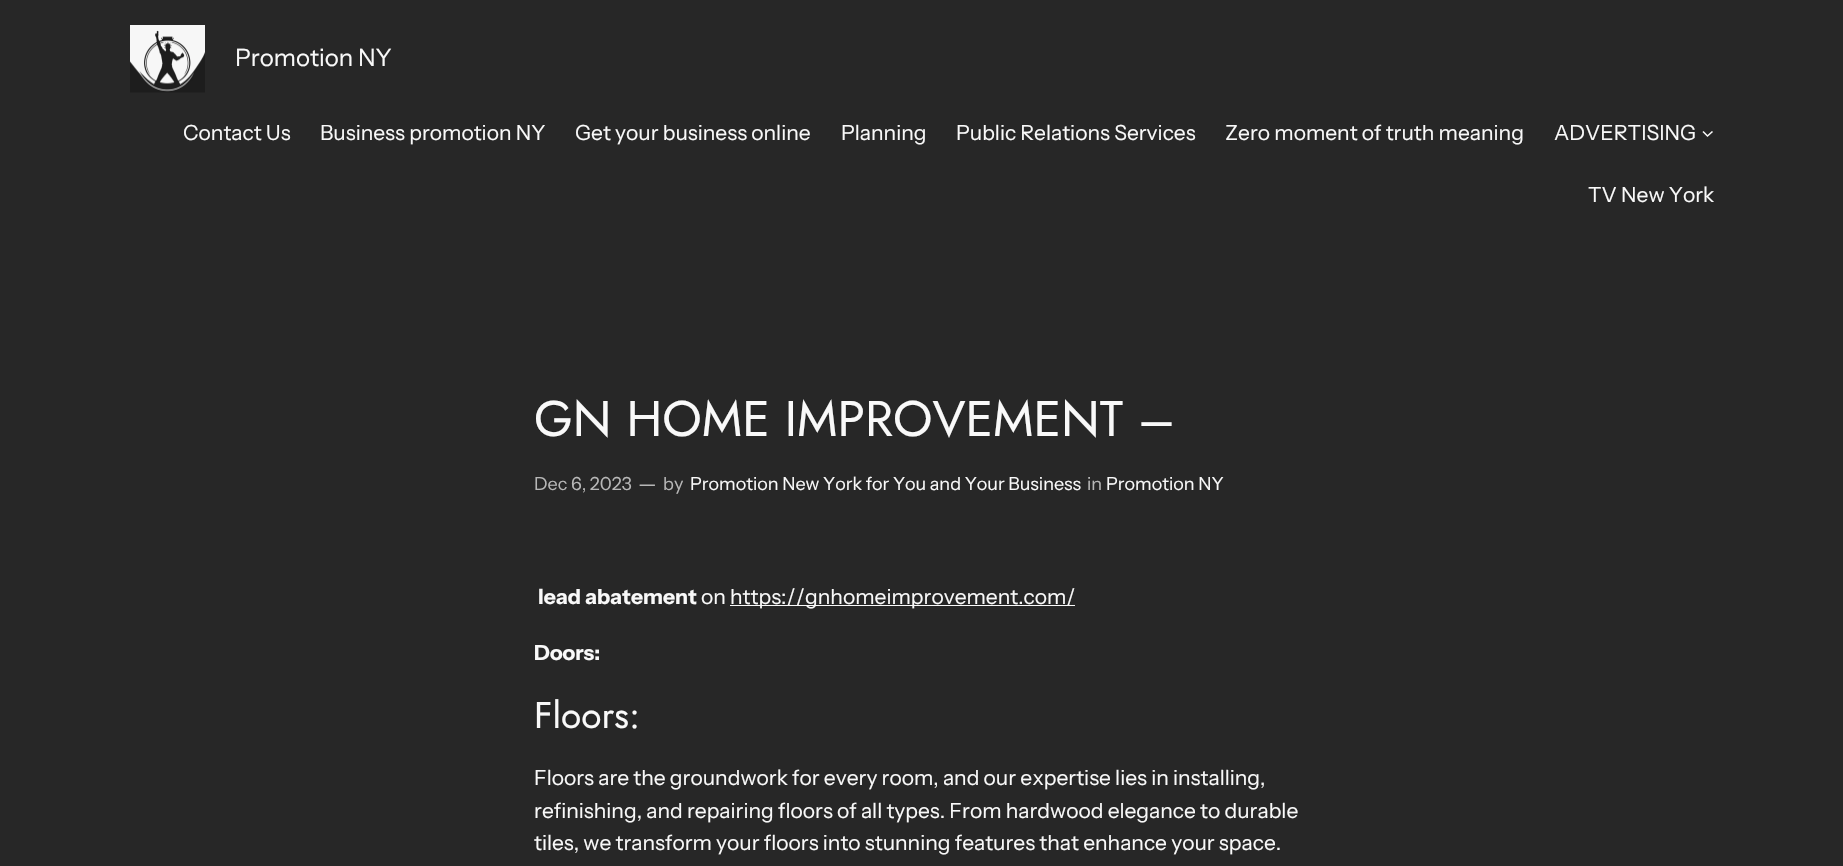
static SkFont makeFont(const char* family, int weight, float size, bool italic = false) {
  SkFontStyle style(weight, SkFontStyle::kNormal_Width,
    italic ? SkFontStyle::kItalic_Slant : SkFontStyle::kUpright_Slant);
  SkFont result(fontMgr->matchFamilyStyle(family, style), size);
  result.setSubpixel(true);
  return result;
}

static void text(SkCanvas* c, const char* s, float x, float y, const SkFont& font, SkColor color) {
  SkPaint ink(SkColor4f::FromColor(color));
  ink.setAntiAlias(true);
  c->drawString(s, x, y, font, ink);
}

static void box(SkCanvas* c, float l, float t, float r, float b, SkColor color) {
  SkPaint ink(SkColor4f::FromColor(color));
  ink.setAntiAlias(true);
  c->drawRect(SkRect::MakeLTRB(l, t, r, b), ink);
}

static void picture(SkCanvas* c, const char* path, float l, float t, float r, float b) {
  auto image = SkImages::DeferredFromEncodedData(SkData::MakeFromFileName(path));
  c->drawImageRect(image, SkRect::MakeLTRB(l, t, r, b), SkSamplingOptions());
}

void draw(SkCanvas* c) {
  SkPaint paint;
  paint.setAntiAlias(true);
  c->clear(0xff272727);
  picture(c, "img_01.png", 130, 25, 205, 93);
  SkFont face1 = makeFont("Instrument Sans", 400, 24);
  text(c, "Promotion NY", 235, 66, face1, 0xfff9f9f9);
  SkFont face2 = makeFont("Instrument Sans", 400, 21);
  text(c, "Contact Us", 183, 140, face2, 0xfff9f9f9);
  text(c, "Business promotion NY", 320, 140, face2, 0xfff9f9f9);
  text(c, "Get your business online", 575, 140, face2, 0xfff9f9f9);
  text(c, "Planning", 841, 140, face2, 0xfff9f9f9);
  text(c, "Public Relations Services", 956, 140, face2, 0xfff9f9f9);
  text(c, "Zero moment of truth meaning", 1225, 140, face2, 0xfff9f9f9);
  text(c, "ADVERTISING", 1554, 140, face2, 0xfff9f9f9);
  paint.setStyle(SkPaint::kStroke_Style);
  paint.setStrokeWidth(1.6f);
  paint.setColor(0xfff9f9f9);
  c->drawPath(SkPathBuilder().moveTo(1703, 131.5f).lineTo(1707.5f, 136).lineTo(1712.5f, 131.5f).detach(), paint);
  text(c, "TV New York", 1588, 202, face2, 0xfff9f9f9);
  SkFont face3 = makeFont("Jost", 400, 50);
  text(c, "GN HOME IMPROVEMENT –", 534, 436, face3, 0xfff9f9f9);
  SkFont face4 = makeFont("Instrument Sans", 400, 18);
  text(c, "Dec 6, 2023", 534, 490, face4, 0xffb7b7b7);
  text(c, "—", 638, 491, face2, 0xffb7b7b7);
  text(c, "by", 663, 490, face4, 0xffb7b7b7);
  text(c, "Promotion New York for You and Your Business", 690, 490, face4, 0xfff9f9f9);
  text(c, "in", 1087, 490, face4, 0xffb7b7b7);
  text(c, "Promotion NY", 1106, 490, face4, 0xfff9f9f9);
  SkFont face5 = makeFont("Instrument Sans", 700, 21);
  text(c, "lead abatement", 538, 604, face5, 0xfff9f9f9);
  text(c, "on", 701, 604, face2, 0xfff9f9f9);
  box(c, 730, 605, 1075, 606, 0xfff9f9f9);
  text(c, "https://gnhomeimprovement.com/", 730, 604, face2, 0xfff9f9f9);
  text(c, "Doors:", 534, 660, face5, 0xfff9f9f9);
  SkFont face6 = makeFont("Jost", 400, 37);
  text(c, "Floors:", 534, 728, face6, 0xfff9f9f9);
  text(c, "Floors are the groundwork for every room, and our expertise lies in installing,", 534, 785, face2, 0xfff9f9f9);
  text(c, "refinishing, and repairing floors of all types. From hardwood elegance to durable", 534, 818, face2, 0xfff9f9f9);
  text(c, "tiles, we transform your floors into stunning features that enhance your space.", 534, 850, face2, 0xfff9f9f9);
}
